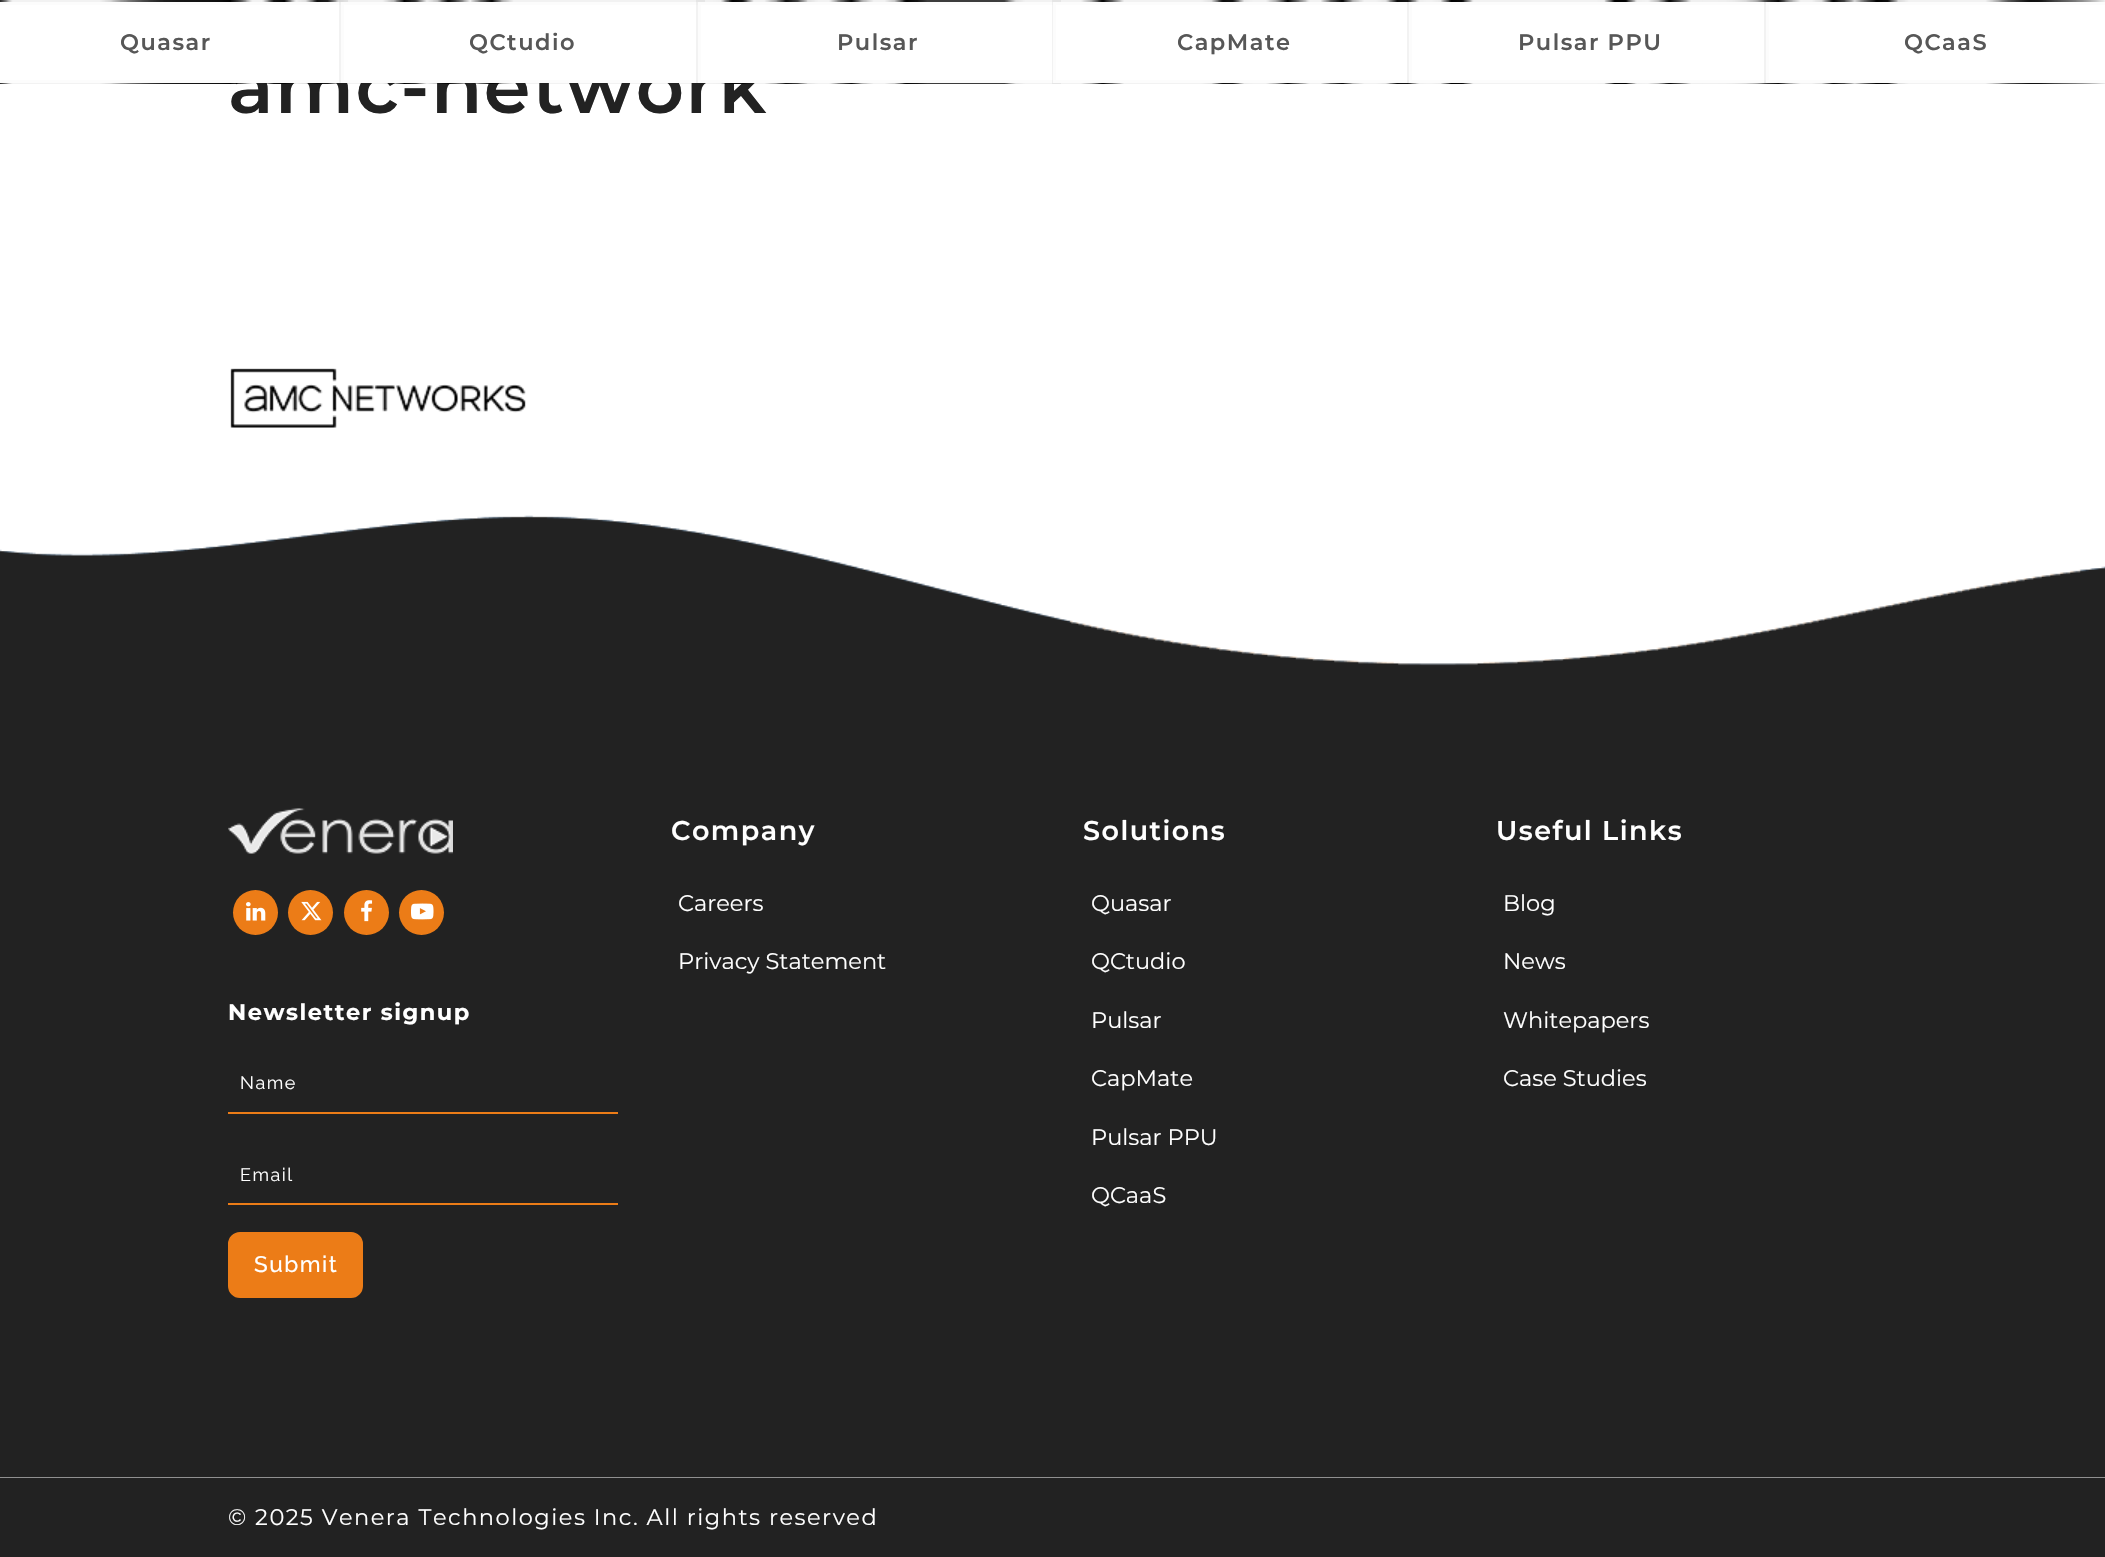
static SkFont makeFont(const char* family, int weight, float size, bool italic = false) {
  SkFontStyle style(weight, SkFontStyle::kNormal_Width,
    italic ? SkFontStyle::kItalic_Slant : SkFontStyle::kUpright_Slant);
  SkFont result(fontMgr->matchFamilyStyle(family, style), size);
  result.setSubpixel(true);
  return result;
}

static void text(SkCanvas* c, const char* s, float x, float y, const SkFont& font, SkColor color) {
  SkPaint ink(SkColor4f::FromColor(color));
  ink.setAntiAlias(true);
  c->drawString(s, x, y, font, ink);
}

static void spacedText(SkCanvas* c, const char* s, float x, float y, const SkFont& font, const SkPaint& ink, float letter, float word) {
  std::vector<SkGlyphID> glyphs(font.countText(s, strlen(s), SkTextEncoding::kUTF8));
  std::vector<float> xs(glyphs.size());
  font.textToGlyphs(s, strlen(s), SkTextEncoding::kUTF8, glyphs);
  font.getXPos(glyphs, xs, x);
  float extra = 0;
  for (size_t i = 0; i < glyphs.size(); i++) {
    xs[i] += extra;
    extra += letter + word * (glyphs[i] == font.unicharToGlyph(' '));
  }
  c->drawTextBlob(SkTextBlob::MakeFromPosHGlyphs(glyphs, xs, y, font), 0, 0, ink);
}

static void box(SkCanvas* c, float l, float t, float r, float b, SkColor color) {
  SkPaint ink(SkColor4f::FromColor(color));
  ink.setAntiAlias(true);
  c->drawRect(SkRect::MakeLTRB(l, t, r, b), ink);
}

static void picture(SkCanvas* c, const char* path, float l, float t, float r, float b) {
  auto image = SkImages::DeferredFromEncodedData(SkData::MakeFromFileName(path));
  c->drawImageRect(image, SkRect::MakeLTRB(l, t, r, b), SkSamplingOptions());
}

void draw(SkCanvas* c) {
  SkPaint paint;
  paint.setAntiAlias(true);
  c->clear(0xffffffff);
  picture(c, "img_01.png", 0, 0, 2105, 2);
  SkFont face1 = makeFont("Montserrat", 600, 75);
  paint.setColor(0xff222222);
  spacedText(c, "amc-network", 228, 113, face1, paint, 1.5f, 0);
  picture(c, "img_02.png", 0, 83, 2105, 84);
  paint.setStyle(SkPaint::kStroke_Style);
  paint.setStrokeWidth(2);
  paint.setColor(0x0d000000);
  c->drawRect(SkRect::MakeLTRB(-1, 1, 347, 83), paint);
  box(c, 232, 72, 341, 80, 0xffffffff);
  paint.setStrokeWidth(3);
  paint.setColor(0xfffcfcfc);
  c->drawRect(SkRect::MakeLTRB(-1.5f, 3.5f, 345.5f, 81.5f), paint);
  SkFont face2 = makeFont("Montserrat", 600, 22.5f);
  paint.setStyle(SkPaint::kFill_Style);
  paint.setColor(0xff575757);
  spacedText(c, "Quasar", 120, 50, face2, paint, 1.5f, 0);
  paint.setStyle(SkPaint::kStroke_Style);
  paint.setStrokeWidth(2);
  paint.setColor(0x0d000000);
  c->drawRect(SkRect::MakeLTRB(340, 1, 704, 83), paint);
  box(c, 344, 5, 698, 80, 0xffffffff);
  paint.setStrokeWidth(3);
  paint.setColor(0xfffcfcfc);
  c->drawRect(SkRect::MakeLTRB(342.5f, 3.5f, 702.5f, 81.5f), paint);
  paint.setStyle(SkPaint::kFill_Style);
  paint.setColor(0xff575757);
  spacedText(c, "QCtudio", 469, 50, face2, paint, 1.5f, 0);
  paint.setStyle(SkPaint::kStroke_Style);
  paint.setStrokeWidth(2);
  paint.setColor(0x0d000000);
  c->drawRect(SkRect::MakeLTRB(697, 1, 1060, 83), paint);
  box(c, 701, 5, 765, 80, 0xffffffff);
  paint.setStrokeWidth(3);
  paint.setColor(0xfffcfcfc);
  c->drawRect(SkRect::MakeLTRB(699.5f, 3.5f, 1057.5f, 81.5f), paint);
  paint.setStyle(SkPaint::kFill_Style);
  paint.setColor(0xff575757);
  spacedText(c, "Pulsar", 837, 50, face2, paint, 1.5f, 0);
  paint.setStyle(SkPaint::kStroke_Style);
  paint.setStrokeWidth(2);
  paint.setColor(0x0d000000);
  c->drawRect(SkRect::MakeLTRB(1053, 1, 1415, 83), paint);
  box(c, 1056, 5, 1061, 80, 0xffffffff);
  paint.setStrokeWidth(3);
  paint.setColor(0xfffcfcfc);
  c->drawRect(SkRect::MakeLTRB(1054.5f, 3.5f, 1413.5f, 81.5f), paint);
  paint.setStyle(SkPaint::kFill_Style);
  paint.setColor(0xff575757);
  spacedText(c, "CapMate", 1177, 50, face2, paint, 1.5f, 0);
  paint.setStyle(SkPaint::kStroke_Style);
  paint.setStrokeWidth(2);
  paint.setColor(0x0d000000);
  c->drawRect(SkRect::MakeLTRB(1408, 1, 1772, 83), paint);
  box(c, 1412, 5, 1416, 80, 0xffffffff);
  paint.setStrokeWidth(3);
  paint.setColor(0xfffcfcfc);
  c->drawRect(SkRect::MakeLTRB(1410.5f, 3.5f, 1770.5f, 81.5f), paint);
  paint.setStyle(SkPaint::kFill_Style);
  paint.setColor(0xff575757);
  spacedText(c, "Pulsar PPU", 1518, 50, face2, paint, 1.5f, 0);
  paint.setStyle(SkPaint::kStroke_Style);
  paint.setStrokeWidth(2);
  paint.setColor(0x0d000000);
  c->drawRect(SkRect::MakeLTRB(1765, 1, 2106, 83), paint);
  box(c, 1769, 5, 1773, 80, 0xffffffff);
  paint.setStrokeWidth(3);
  paint.setColor(0xfffcfcfc);
  c->drawRect(SkRect::MakeLTRB(1767.5f, 3.5f, 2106.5f, 81.5f), paint);
  paint.setStyle(SkPaint::kFill_Style);
  paint.setColor(0xff575757);
  spacedText(c, "QCaaS", 1904, 50, face2, paint, 1.5f, 0);
  picture(c, "img_03.png", 230, 368, 526, 428);
  picture(c, "img_04.png", 0, 515, 2105, 1478);
  SkFont face3 = makeFont("Montserrat", 600, 27);
  paint.setColor(0xffffffff);
  spacedText(c, "Company", 671, 840, face3, paint, 1.5f, 0);
  SkFont face4 = makeFont("Montserrat", 400, 22.5f);
  text(c, "Careers", 678, 911, face4, 0xffffffff);
  text(c, "Privacy Statement", 678, 969, face4, 0xffffffff);
  spacedText(c, "Solutions", 1083, 840, face3, paint, 1.5f, 0);
  text(c, "Quasar", 1091, 911, face4, 0xffffffff);
  text(c, "QCtudio", 1091, 969, face4, 0xffffffff);
  text(c, "Pulsar", 1091, 1028, face4, 0xffffffff);
  text(c, "CapMate", 1091, 1086, face4, 0xffffffff);
  text(c, "Pulsar PPU", 1091, 1145, face4, 0xffffffff);
  text(c, "QCaaS", 1091, 1203, face4, 0xffffffff);
  spacedText(c, "Useful Links", 1496, 840, face3, paint, 1.5f, 0);
  text(c, "Blog", 1503, 911, face4, 0xffffffff);
  text(c, "News", 1503, 969, face4, 0xffffffff);
  text(c, "Whitepapers", 1503, 1028, face4, 0xffffffff);
  text(c, "Case Studies", 1503, 1086, face4, 0xffffffff);
  picture(c, "img_05.png", 228, 808, 453, 854);
  paint.setColor(0xffec7c17);
  c->drawCircle(255.5f, 912.5f, 22.5f, paint);
  picture(c, "img_06.png", 246, 902, 266, 921);
  c->drawCircle(310.5f, 912.5f, 22.5f, paint);
  picture(c, "img_07.png", 301, 901, 322, 921);
  c->drawCircle(366.5f, 912.5f, 22.5f, paint);
  picture(c, "img_08.png", 361, 900, 373, 922);
  c->drawCircle(421.5f, 912.5f, 22.5f, paint);
  picture(c, "img_09.png", 411, 903, 434, 920);
  SkFont face5 = makeFont("Montserrat", 700, 22.5f);
  paint.setColor(0xffffffff);
  spacedText(c, "Newsletter signup", 228, 1020, face5, paint, 1.5f, 0);
  box(c, 228, 1112, 618, 1114, 0xffec7c17);
  SkFont face6 = makeFont("Raleway", 400, 18);
  spacedText(c, "Name", 240, 1089, face6, paint, 1.5f, 0);
  box(c, 228, 1203, 618, 1205, 0xffec7c17);
  spacedText(c, "Email", 240, 1181, face6, paint, 1.5f, 0);
  paint.setColor(0xffec7c17);
  c->drawRoundRect(SkRect::MakeLTRB(229.5f, 1233.5f, 361.5f, 1296.5f), 10.5f, 10.5f, paint);
  paint.setStyle(SkPaint::kStroke_Style);
  c->drawRoundRect(SkRect::MakeLTRB(229.5f, 1233.5f, 361.5f, 1296.5f), 10.5f, 10.5f, paint);
  SkFont face7 = makeFont("Raleway", 500, 22.5f);
  paint.setStyle(SkPaint::kFill_Style);
  paint.setColor(0xffffffff);
  spacedText(c, "Submit", 254, 1272, face7, paint, 1.5f, 0);
  box(c, 0, 1478, 2105, 1557, 0xff222222);
  spacedText(c, "© 2025 Venera Technologies Inc. All rights reserved", 228, 1525, face4, paint, 1.5f, 0);
}
